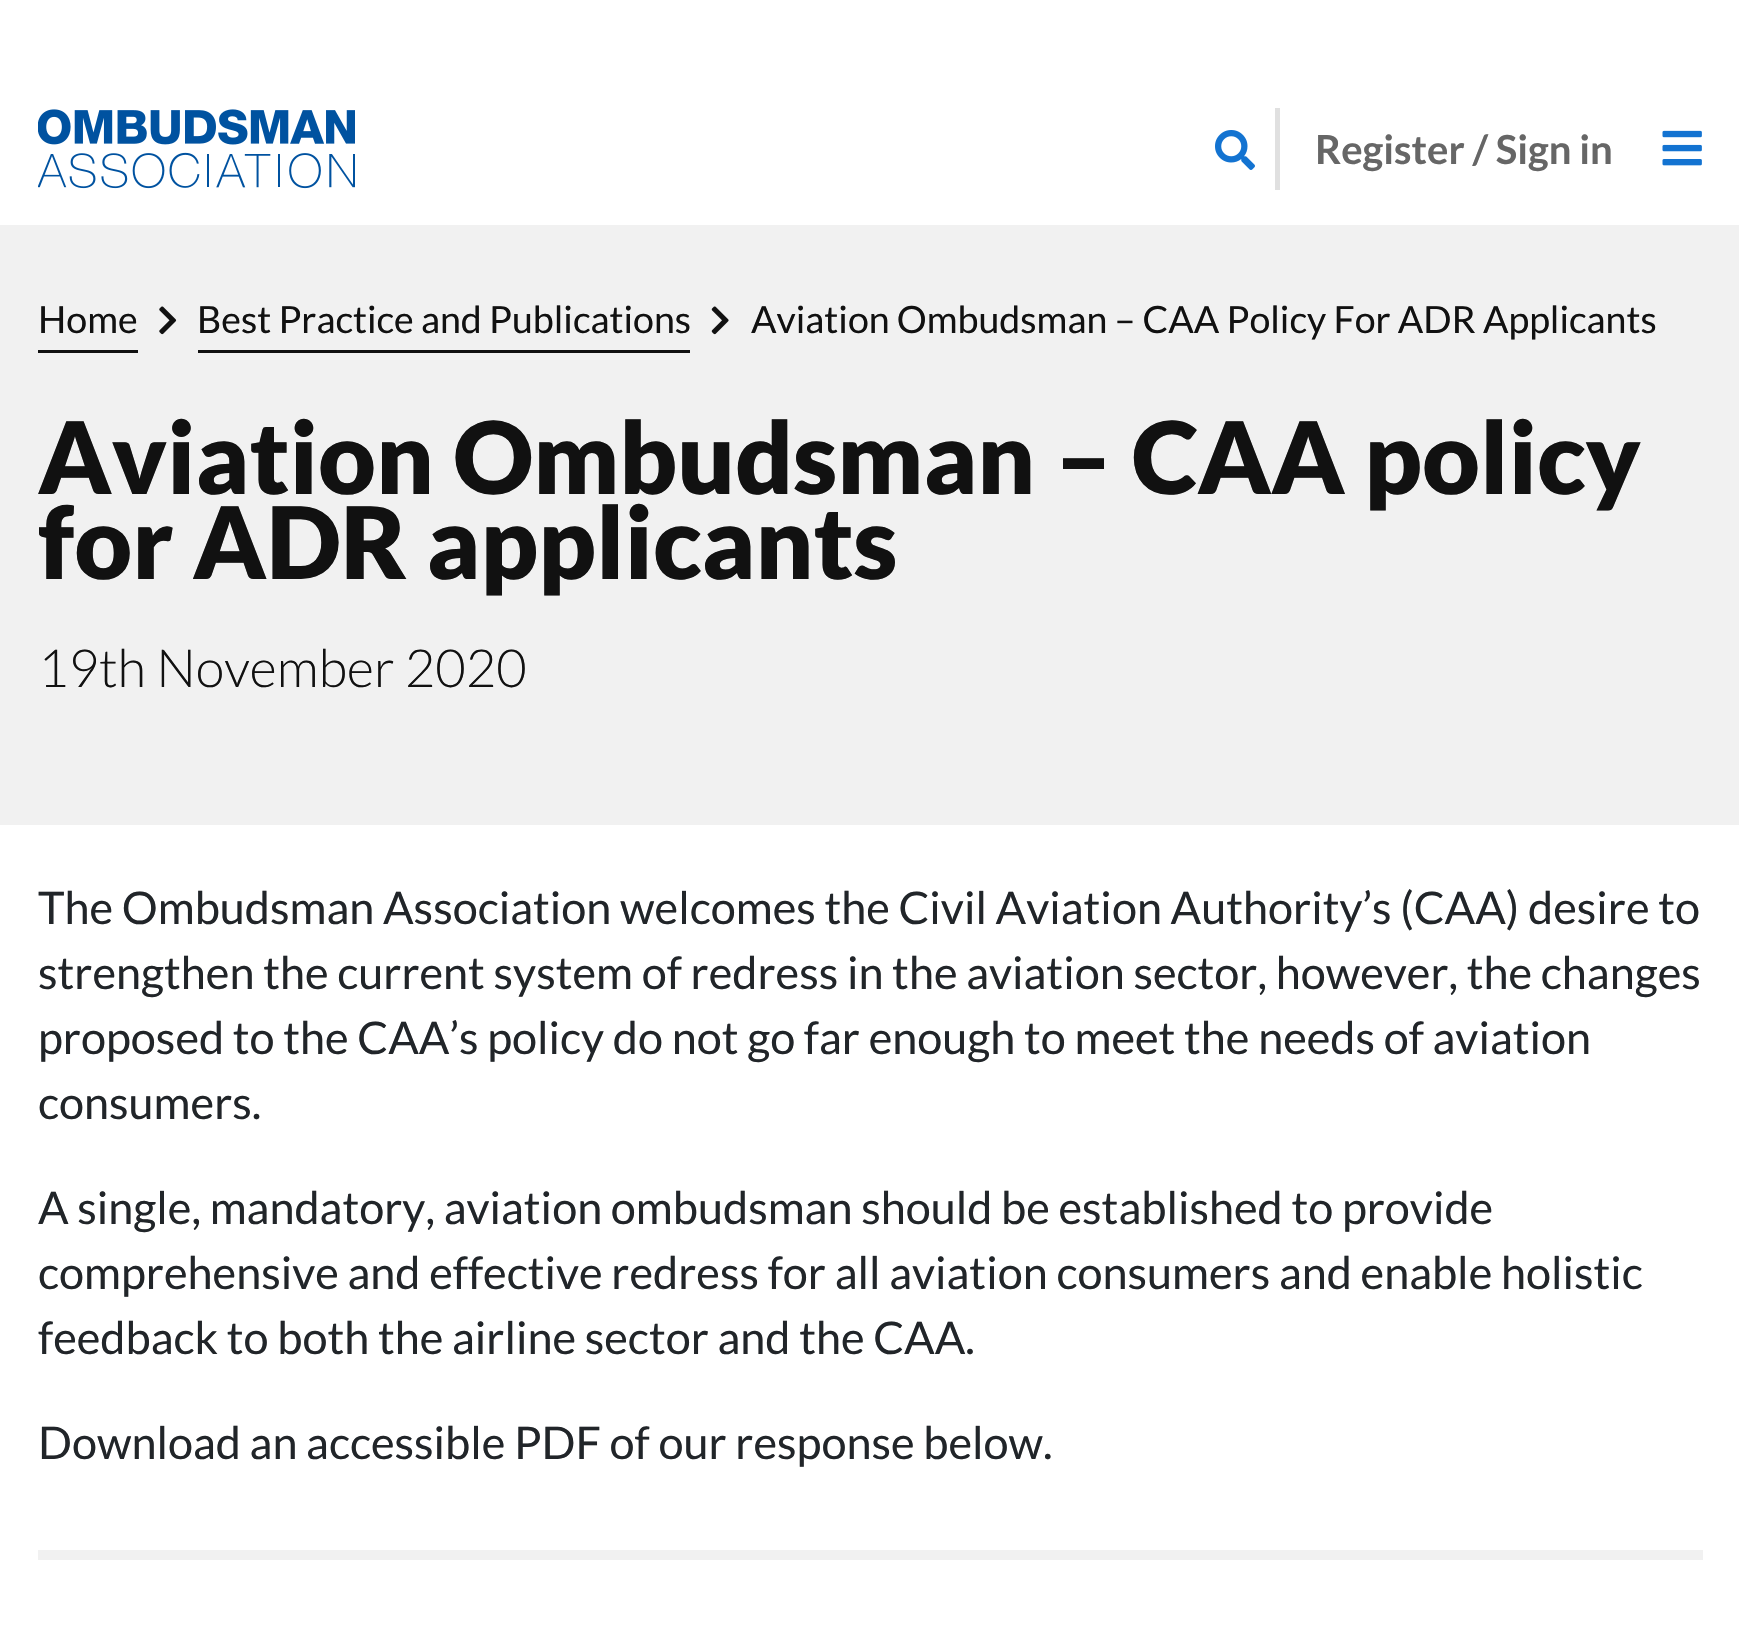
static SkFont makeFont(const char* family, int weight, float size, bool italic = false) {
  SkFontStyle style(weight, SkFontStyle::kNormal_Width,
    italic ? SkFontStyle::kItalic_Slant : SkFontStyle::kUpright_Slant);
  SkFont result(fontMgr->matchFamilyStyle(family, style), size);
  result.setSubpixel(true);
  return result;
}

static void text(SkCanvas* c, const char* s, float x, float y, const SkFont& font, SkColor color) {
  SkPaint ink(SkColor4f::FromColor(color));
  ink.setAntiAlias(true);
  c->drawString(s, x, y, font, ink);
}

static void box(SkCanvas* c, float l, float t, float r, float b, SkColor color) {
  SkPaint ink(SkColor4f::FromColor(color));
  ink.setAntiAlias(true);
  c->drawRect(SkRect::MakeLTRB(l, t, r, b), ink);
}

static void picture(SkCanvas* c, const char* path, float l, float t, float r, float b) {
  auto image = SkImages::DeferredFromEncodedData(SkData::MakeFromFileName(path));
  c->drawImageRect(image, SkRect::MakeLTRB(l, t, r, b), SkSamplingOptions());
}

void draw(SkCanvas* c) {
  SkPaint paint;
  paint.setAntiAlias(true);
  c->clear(0xffffffff);
  picture(c, "img_01.png", 38, 109, 355, 189);
  picture(c, "img_02.png", 1215, 130, 1255, 170);
  box(c, 1275, 108, 1280, 190, 0xffe0e0e0);
  SkFont face1 = makeFont("Lato", 700, 40);
  text(c, "Register / Sign in", 1315, 164, face1, 0xff666666);
  picture(c, "img_03.png", 1662, 130, 1702, 166);
  box(c, 0, 225, 1739, 825, 0xfff1f1f1);
  box(c, 38, 350, 138, 353, 0xff111111);
  SkFont face2 = makeFont("Lato", 400, 37.5f);
  text(c, "Home", 38, 333, face2, 0xff111111);
  picture(c, "img_04.png", 159, 306, 177, 335);
  box(c, 198, 350, 690, 353, 0xff111111);
  text(c, "Best Practice and Publications", 197, 333, face2, 0xff111111);
  picture(c, "img_05.png", 711, 306, 729, 335);
  text(c, "Aviation Ombudsman – CAA Policy For ADR Applicants", 751, 333, face2, 0xff111111);
  SkFont face3 = makeFont("Lato", 900, 100);
  text(c, "Aviation Ombudsman – CAA policy", 38, 494, face3, 0xff111111);
  text(c, "for ADR applicants", 38, 579, face3, 0xff111111);
  SkFont face4 = makeFont("Lato", 300, 52.5f);
  text(c, "19th November 2020", 38, 687, face4, 0xff111111);
  SkFont face5 = makeFont("Lato", 400, 45);
  text(c, "The Ombudsman Association welcomes the Civil Aviation Authority’s (CAA) desire to", 38, 924, face5, 0xff212529);
  text(c, "strengthen the current system of redress in the aviation sector, however, the changes", 38, 989, face5, 0xff212529);
  text(c, "proposed to the CAA’s policy do not go far enough to meet the needs of aviation", 38, 1054, face5, 0xff212529);
  text(c, "consumers.", 38, 1119, face5, 0xff212529);
  text(c, "A single, mandatory, aviation ombudsman should be established to provide", 38, 1224, face5, 0xff212529);
  text(c, "comprehensive and effective redress for all aviation consumers and enable holistic", 38, 1289, face5, 0xff212529);
  text(c, "feedback to both the airline sector and the CAA.", 38, 1354, face5, 0xff212529);
  text(c, "Download an accessible PDF of our response below.", 38, 1459, face5, 0xff212529);
  box(c, 38, 1550, 1703, 1560, 0xfff1f1f1);
}
